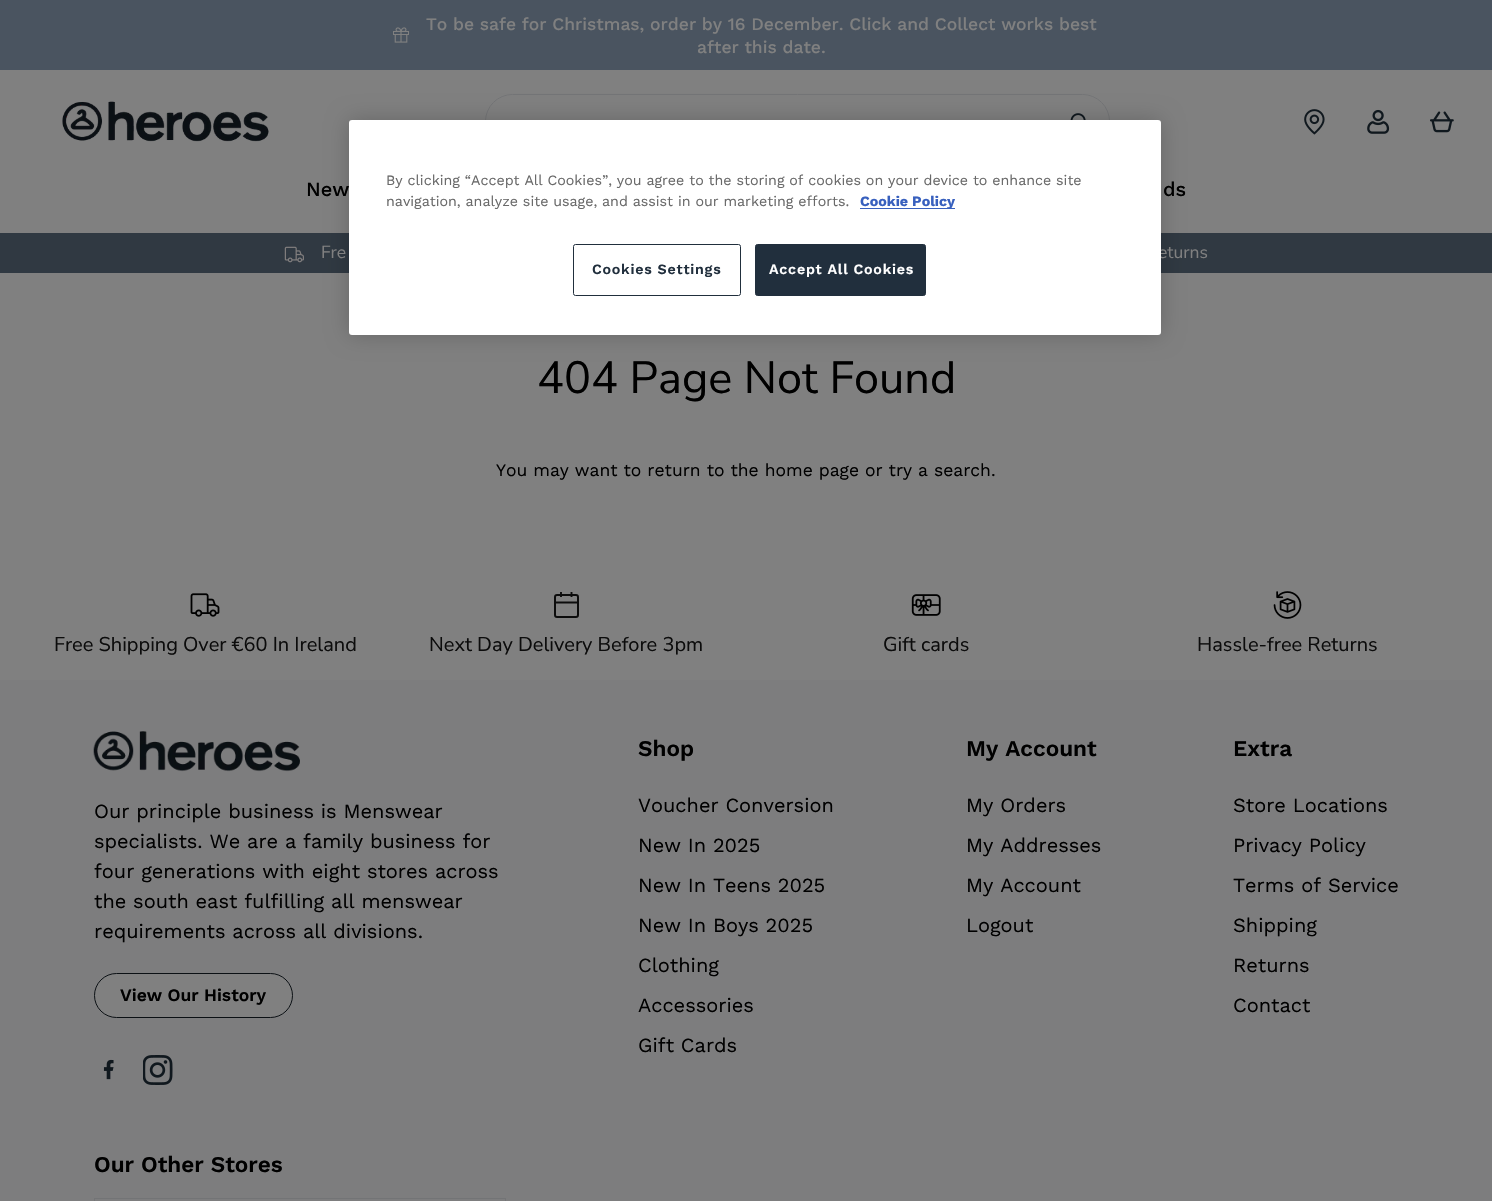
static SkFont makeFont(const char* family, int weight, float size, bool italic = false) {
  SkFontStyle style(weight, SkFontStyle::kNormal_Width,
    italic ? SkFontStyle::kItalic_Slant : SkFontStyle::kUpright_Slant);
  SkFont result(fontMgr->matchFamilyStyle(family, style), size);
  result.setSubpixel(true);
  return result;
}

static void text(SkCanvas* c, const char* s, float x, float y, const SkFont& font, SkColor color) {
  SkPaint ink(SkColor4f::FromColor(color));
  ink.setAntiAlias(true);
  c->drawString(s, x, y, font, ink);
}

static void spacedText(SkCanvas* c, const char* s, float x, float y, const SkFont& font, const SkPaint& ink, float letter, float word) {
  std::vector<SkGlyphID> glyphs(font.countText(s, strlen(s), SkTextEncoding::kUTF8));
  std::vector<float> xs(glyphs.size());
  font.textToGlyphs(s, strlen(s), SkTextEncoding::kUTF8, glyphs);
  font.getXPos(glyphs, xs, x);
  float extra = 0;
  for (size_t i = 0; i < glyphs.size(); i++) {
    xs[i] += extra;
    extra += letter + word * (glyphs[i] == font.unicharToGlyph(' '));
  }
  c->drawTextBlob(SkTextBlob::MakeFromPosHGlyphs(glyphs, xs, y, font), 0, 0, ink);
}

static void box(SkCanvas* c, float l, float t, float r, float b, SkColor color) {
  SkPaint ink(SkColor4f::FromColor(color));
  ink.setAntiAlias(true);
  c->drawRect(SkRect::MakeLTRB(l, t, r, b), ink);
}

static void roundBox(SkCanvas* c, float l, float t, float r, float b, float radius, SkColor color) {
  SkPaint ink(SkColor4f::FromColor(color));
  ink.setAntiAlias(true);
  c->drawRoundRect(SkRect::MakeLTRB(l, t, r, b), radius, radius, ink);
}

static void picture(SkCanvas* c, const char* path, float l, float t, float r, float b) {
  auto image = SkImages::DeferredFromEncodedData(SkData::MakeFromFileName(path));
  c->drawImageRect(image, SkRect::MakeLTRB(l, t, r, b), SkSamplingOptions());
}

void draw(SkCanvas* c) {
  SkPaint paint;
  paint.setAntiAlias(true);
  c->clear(0xff808080);
  box(c, 0, 0, 1492, 70, 0xff4a5460);
  picture(c, "img_01.png", 393, 27, 409, 43);
  SkFont face1 = makeFont("Work Sans", 500, 17.5f);
  text(c, "To be safe for Christmas, order by 16 December. Click and Collect works best", 426, 30, face1, 0xff808080);
  text(c, "after this date.", 697, 53, face1, 0xff808080);
  paint.setStyle(SkPaint::kStroke_Style);
  paint.setStrokeWidth(1);
  paint.setColor(0xff737476);
  c->drawRoundRect(SkRect::MakeLTRB(485.5f, 94.5f, 1109.5f, 148.5f), 27, 27, paint);
  picture(c, "img_03.png", 1070, 113, 1086, 120);
  box(c, 0, 233, 1492, 273, 0xff303942);
  paint.setStyle(SkPaint::kFill_Style);
  paint.setColor(0x33000000);
  paint.setMaskFilter(SkMaskFilter::MakeBlur(kNormal_SkBlurStyle, 11));
  c->drawRoundRect(SkRect::MakeLTRB(349, 120, 1161, 335), 3, 3, paint);
  paint.setMaskFilter(nullptr);
  SkFont face2 = makeFont("Work Sans", 500, 20);
  text(c, "New", 306, 196, face2, 0xff000000);
  SkFont face3 = makeFont("Nunito Sans", 400, 17.5f);
  text(c, "eturns", 1158, 258, face3, 0xff808080);
  roundBox(c, 349, 120, 1161, 335, 3, 0xffffffff);
  SkFont face4 = makeFont("Work Sans", 400, 14.25f);
  text(c, "By clicking “Accept All Cookies”, you agree to the storing of cookies on your device to enhance site", 386, 185, face4, 0xff696969);
  text(c, "navigation, analyze site usage, and assist in our marketing efforts.", 386, 206, face4, 0xff696969);
  box(c, 860, 208, 955, 209, 0xff3860be);
  SkFont face5 = makeFont("Work Sans", 700, 14.25f);
  text(c, "Cookie Policy", 860, 206, face5, 0xff3860be);
  paint.setStyle(SkPaint::kStroke_Style);
  paint.setColor(0xff212f3d);
  c->drawRoundRect(SkRect::MakeLTRB(573.5f, 244.5f, 740.5f, 295.5f), 2, 2, paint);
  SkFont face6 = makeFont("Work Sans", 600, 14.25f);
  paint.setStyle(SkPaint::kFill_Style);
  spacedText(c, "Cookies Settings", 592, 274, face6, paint, 0.75f, 0);
  c->drawRoundRect(SkRect::MakeLTRB(755.5f, 244.5f, 925.5f, 295.5f), 2, 2, paint);
  paint.setStyle(SkPaint::kStroke_Style);
  c->drawRoundRect(SkRect::MakeLTRB(755.5f, 244.5f, 925.5f, 295.5f), 2, 2, paint);
  paint.setStyle(SkPaint::kFill_Style);
  paint.setColor(0xffffffff);
  spacedText(c, "Accept All Cookies", 769, 274, face6, paint, 0.75f, 0);
  picture(c, "img_02.png", 62, 101, 269, 142);
  picture(c, "img_04.png", 1304, 109, 1325, 135);
  picture(c, "img_05.png", 1367, 109, 1390, 134);
  picture(c, "img_06.png", 1430, 111, 1454, 133);
  text(c, "ds", 1163, 196, face2, 0xff000000);
  picture(c, "img_07.png", 284, 246, 304, 263);
  text(c, "Fre", 321, 258, face3, 0xff808080);
  SkFont face7 = makeFont("Nunito Sans", 400, 45);
  text(c, "404 Page Not Found", 537, 393, face7, 0xff000000);
  SkFont face8 = makeFont("Work Sans", 400, 17.5f);
  text(c, "You may want to return to the home page or try a search.", 496, 476, face8, 0xff000000);
  box(c, 0, 680, 1492, 1201, 0xff7d7d7e);
  picture(c, "img_08.png", 190, 593, 220, 617);
  SkFont face9 = makeFont("Nunito Sans", 400, 20);
  text(c, "Free Shipping Over €60 In Ireland", 54, 651, face9, 0xff0c0c0c);
  paint.setStyle(SkPaint::kStroke_Style);
  paint.setStrokeWidth(2);
  paint.setColor(0xff0c0c0c);
  c->drawRoundRect(SkRect::MakeLTRB(555, 595, 578, 617), 2, 2, paint);
  paint.setStrokeWidth(1.9f);
  c->drawPath(SkPathBuilder().moveTo(571.5f, 592).lineTo(571.5f, 597).moveTo(561, 592).lineTo(561, 597).moveTo(555, 602.5f).lineTo(577.5f, 602.5f).detach(), paint);
  text(c, "Next Day Delivery Before 3pm", 429, 651, face9, 0xff0c0c0c);
  picture(c, "img_09.png", 911, 594, 941, 616);
  text(c, "Gift cards", 883, 651, face9, 0xff0c0c0c);
  picture(c, "img_10.png", 1273, 591, 1302, 619);
  text(c, "Hassle-free Returns", 1197, 651, face9, 0xff0c0c0c);
  picture(c, "img_11.png", 93, 731, 300, 772);
  SkFont face10 = makeFont("Work Sans", 400, 20);
  text(c, "Our principle business is Menswear", 94, 818, face10, 0xff000000);
  text(c, "specialists. We are a family business for", 94, 848, face10, 0xff000000);
  text(c, "four generations with eight stores across", 94, 878, face10, 0xff000000);
  text(c, "the south east fulfilling all menswear", 94, 908, face10, 0xff000000);
  text(c, "requirements across all divisions.", 94, 938, face10, 0xff000000);
  paint.setStyle(SkPaint::kFill_Style);
  paint.setColor(0xff808080);
  c->drawRoundRect(SkRect::MakeLTRB(94.5f, 973.5f, 292.5f, 1017.5f), 22, 22, paint);
  paint.setStyle(SkPaint::kStroke_Style);
  paint.setStrokeWidth(1);
  paint.setColor(0xff0b1014);
  c->drawRoundRect(SkRect::MakeLTRB(94.5f, 973.5f, 292.5f, 1017.5f), 22, 22, paint);
  SkFont face11 = makeFont("Work Sans", 600, 17.5f);
  text(c, "View Our History", 120, 1001, face11, 0xff000000);
  picture(c, "img_12.png", 103, 1059, 114, 1080);
  picture(c, "img_13.png", 143, 1055, 173, 1085);
  SkFont face12 = makeFont("Work Sans", 600, 22.5f);
  text(c, "Our Other Stores", 94, 1172, face12, 0xff000000);
  paint.setColor(0xff737476);
  c->drawRect(SkRect::MakeLTRB(94.5f, 1198.5f, 505.5f, 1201.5f), paint);
  text(c, "Shop", 638, 756, face12, 0xff000000);
  text(c, "Voucher Conversion", 638, 812, face10, 0xff000000);
  text(c, "New In 2025", 638, 852, face10, 0xff000000);
  text(c, "New In Teens 2025", 638, 892, face10, 0xff000000);
  text(c, "New In Boys 2025", 638, 932, face10, 0xff000000);
  text(c, "Clothing", 638, 972, face10, 0xff000000);
  text(c, "Accessories", 638, 1012, face10, 0xff000000);
  text(c, "Gift Cards", 638, 1052, face10, 0xff000000);
  text(c, "My Account", 966, 756, face12, 0xff000000);
  text(c, "My Orders", 966, 812, face10, 0xff000000);
  text(c, "My Addresses", 966, 852, face10, 0xff000000);
  text(c, "My Account", 966, 892, face10, 0xff000000);
  text(c, "Logout", 966, 932, face10, 0xff000000);
  text(c, "Extra", 1233, 756, face12, 0xff000000);
  text(c, "Store Locations", 1233, 812, face10, 0xff000000);
  text(c, "Privacy Policy", 1233, 852, face10, 0xff000000);
  text(c, "Terms of Service", 1233, 892, face10, 0xff000000);
  text(c, "Shipping", 1233, 932, face10, 0xff000000);
  text(c, "Returns", 1233, 972, face10, 0xff000000);
  text(c, "Contact", 1233, 1012, face10, 0xff000000);
}
